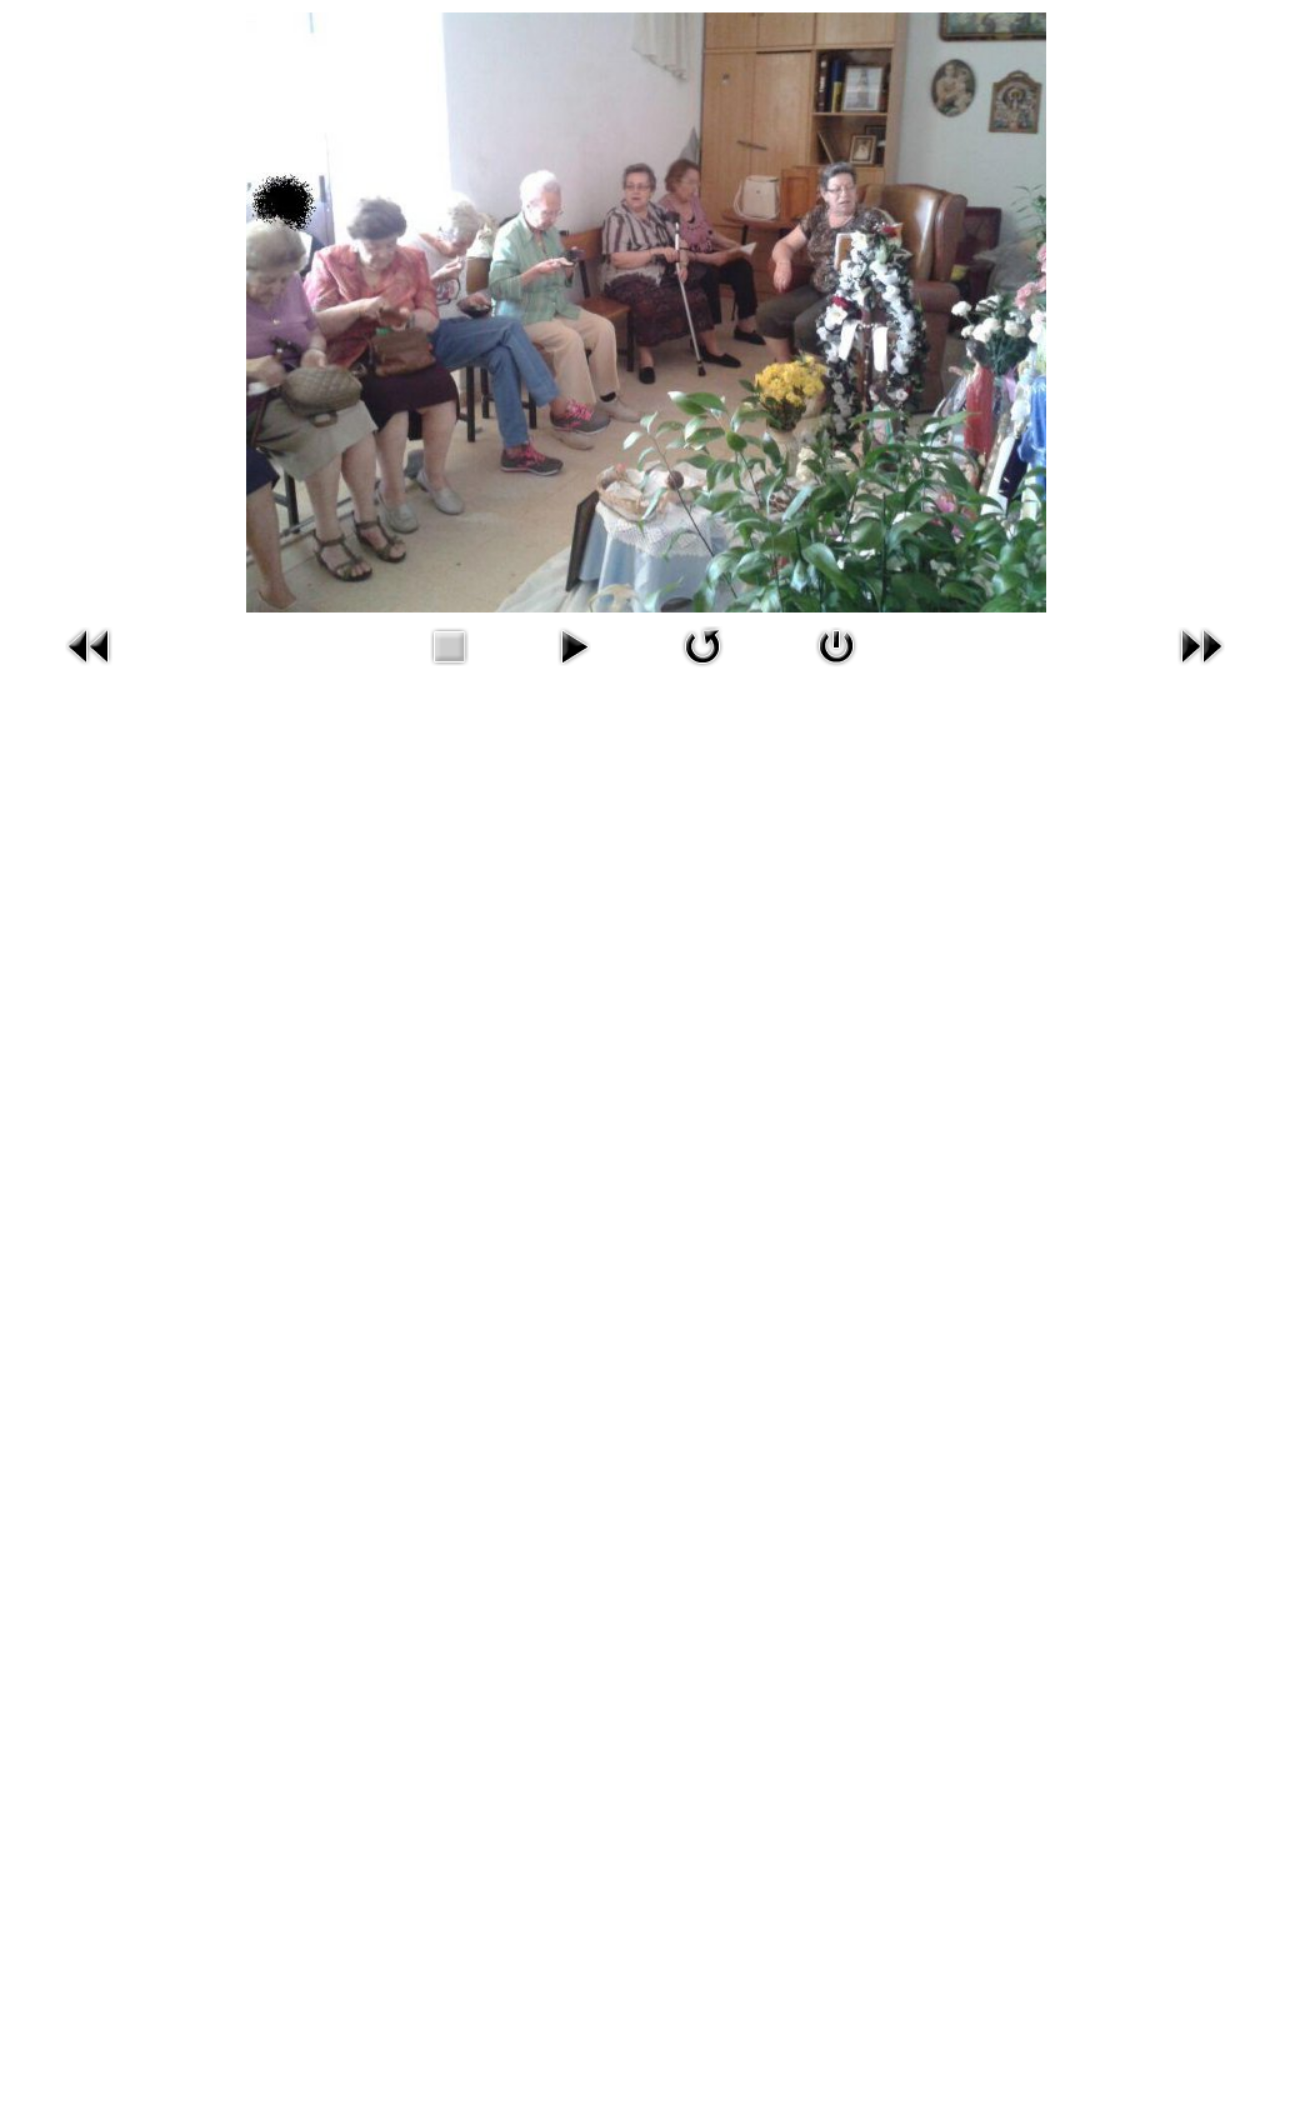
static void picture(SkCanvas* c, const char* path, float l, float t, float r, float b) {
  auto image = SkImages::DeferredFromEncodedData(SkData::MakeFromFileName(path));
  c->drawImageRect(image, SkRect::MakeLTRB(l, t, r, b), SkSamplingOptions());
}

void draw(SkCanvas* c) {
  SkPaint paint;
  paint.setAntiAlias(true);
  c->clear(0xffffffff);
  picture(c, "img_01.png", 246, 12, 1047, 613);
  picture(c, "img_02.png", 65, 627, 113, 666);
  picture(c, "img_03.png", 430, 627, 469, 666);
  picture(c, "img_04.png", 557, 627, 591, 666);
  picture(c, "img_05.png", 681, 626, 724, 668);
  picture(c, "img_06.png", 815, 627, 858, 667);
  picture(c, "img_07.png", 1177, 627, 1225, 666);
}
